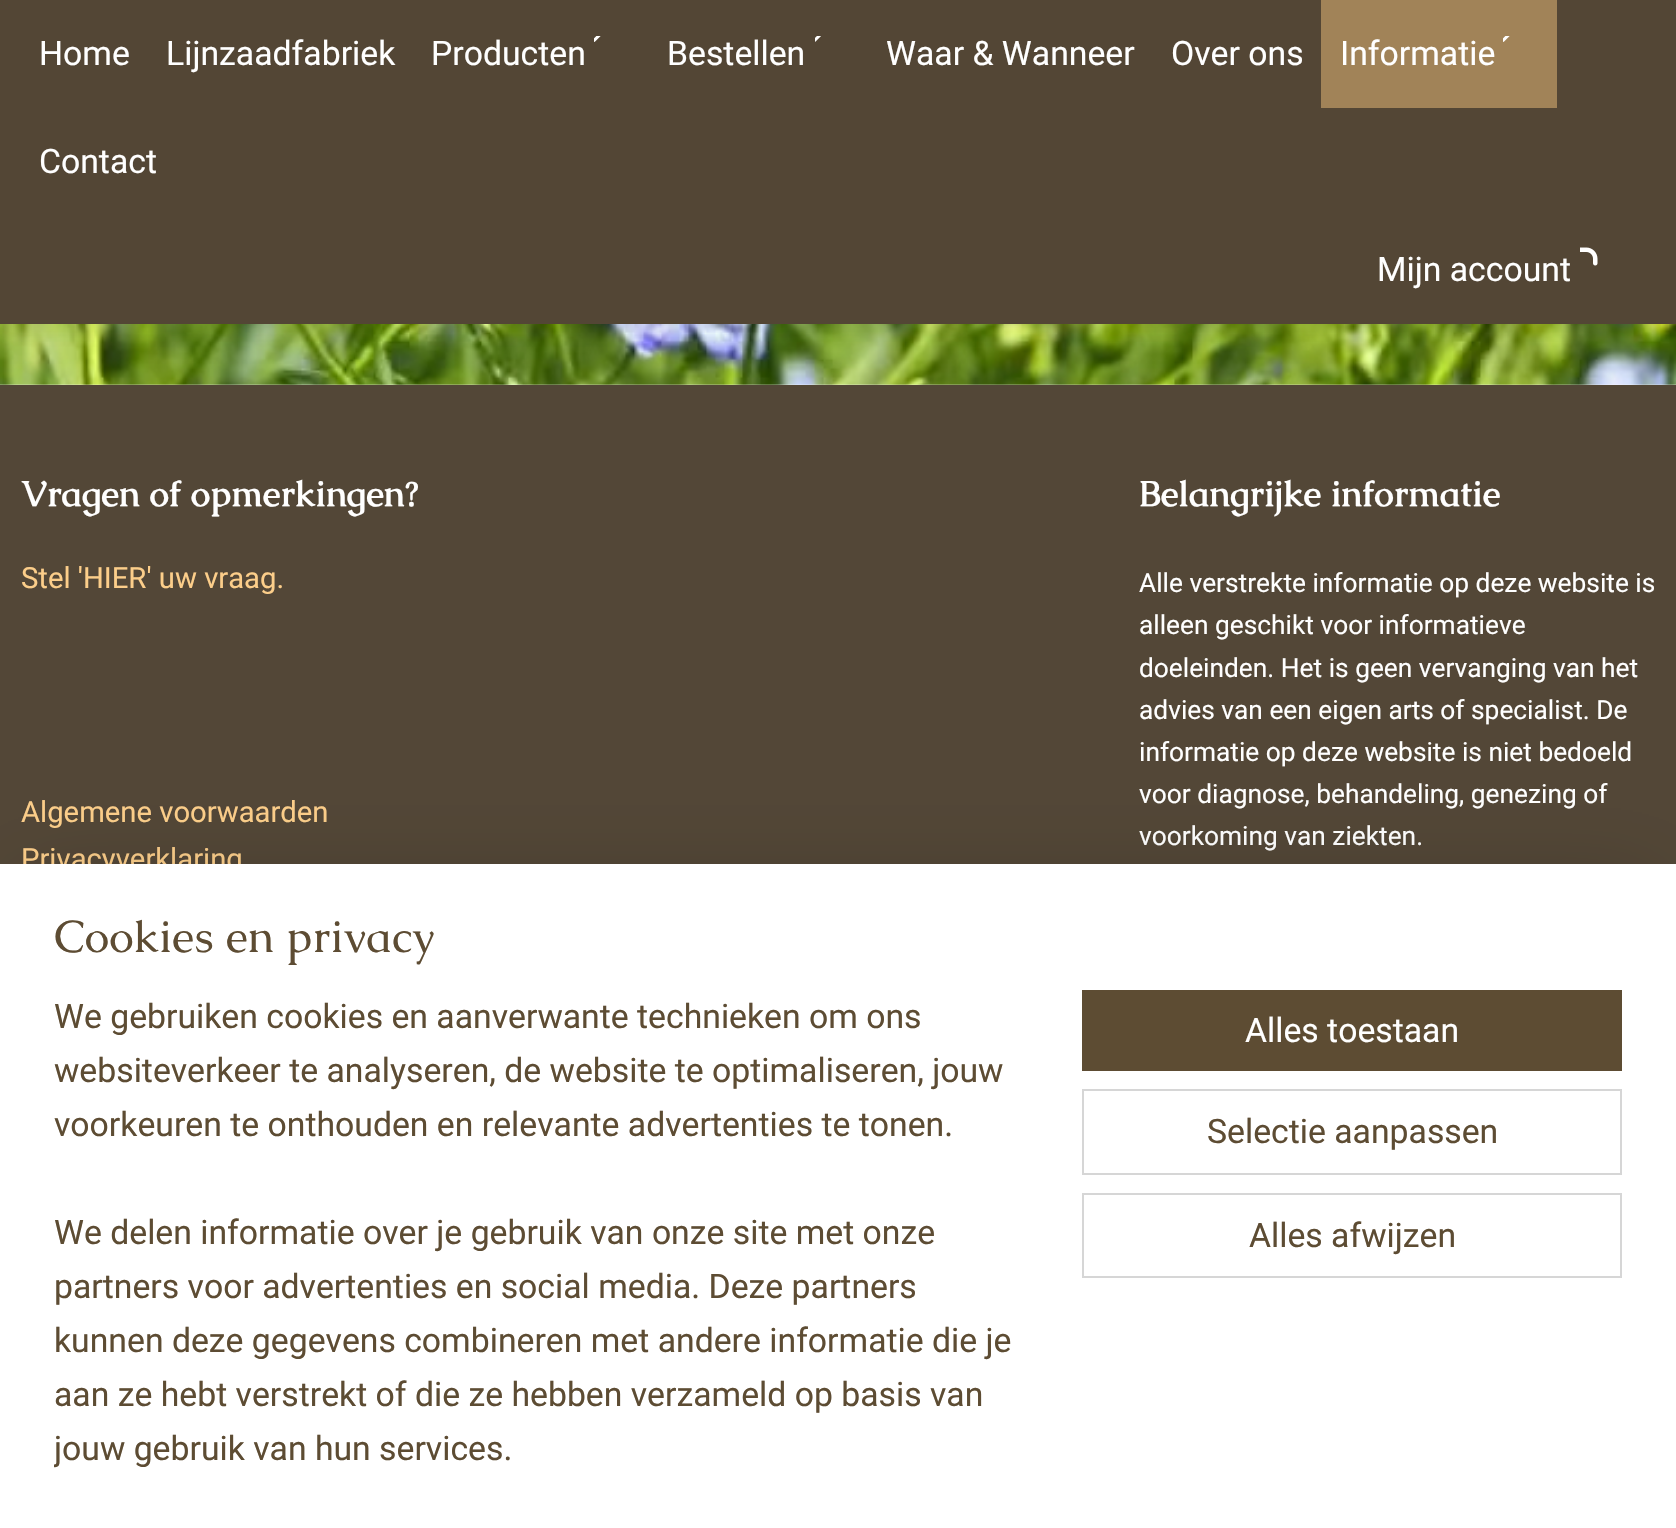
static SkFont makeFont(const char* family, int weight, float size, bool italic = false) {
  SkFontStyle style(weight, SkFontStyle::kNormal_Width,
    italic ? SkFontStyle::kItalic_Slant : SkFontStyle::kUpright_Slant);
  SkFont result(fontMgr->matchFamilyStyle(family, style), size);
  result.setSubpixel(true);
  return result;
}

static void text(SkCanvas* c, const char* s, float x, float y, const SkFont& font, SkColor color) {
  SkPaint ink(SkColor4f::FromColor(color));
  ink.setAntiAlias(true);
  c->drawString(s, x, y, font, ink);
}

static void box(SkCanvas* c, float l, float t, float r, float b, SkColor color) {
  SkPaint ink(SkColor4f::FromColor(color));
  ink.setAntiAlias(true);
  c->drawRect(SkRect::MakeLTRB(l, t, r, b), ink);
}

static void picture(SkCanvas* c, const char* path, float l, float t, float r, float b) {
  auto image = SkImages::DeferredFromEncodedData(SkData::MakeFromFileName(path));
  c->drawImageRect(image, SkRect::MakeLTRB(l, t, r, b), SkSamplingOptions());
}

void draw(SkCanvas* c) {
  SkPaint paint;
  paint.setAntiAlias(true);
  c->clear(0xffffffff);
  picture(c, "img_01.png", 0, 324, 1676, 385);
  paint.setColor(0x14000000);
  paint.setMaskFilter(SkMaskFilter::MakeBlur(kNormal_SkBlurStyle, 13.5f));
  c->drawRect(SkRect::MakeLTRB(0, 0, 1676, 324), paint);
  paint.setMaskFilter(nullptr);
  box(c, 0, 0, 1676, 324, 0xff534635);
  SkFont face1 = makeFont("Roboto", 400, 33.75f);
  text(c, "Home", 39, 65, face1, 0xffffffff);
  text(c, "Lijnzaadfabriek", 166, 65, face1, 0xffffffff);
  text(c, "Producten", 431, 65, face1, 0xffffffff);
  picture(c, "img_02.png", 594, 36, 601, 42);
  text(c, "Bestellen", 667, 65, face1, 0xffffffff);
  picture(c, "img_03.png", 815, 36, 821, 42);
  text(c, "Waar & Wanneer", 886, 65, face1, 0xffffffff);
  text(c, "Over ons", 1171, 65, face1, 0xffffffff);
  box(c, 1321, 0, 1557, 108, 0xffa18358);
  text(c, "Informatie", 1340, 65, face1, 0xffffffff);
  picture(c, "img_04.png", 1503, 36, 1510, 42);
  text(c, "Contact", 39, 173, face1, 0xffffffff);
  text(c, "Mijn account", 1377, 281, face1, 0xffffffff);
  picture(c, "img_05.png", 1580, 247, 1598, 266);
  box(c, 0, 385, 1676, 864, 0xff534737);
  SkFont face2 = makeFont("Caudex", 700, 36);
  text(c, "Vragen of opmerkingen?", 21, 506, face2, 0xffffffff);
  SkFont face3 = makeFont("Roboto", 400, 29.25f);
  text(c, "Stel 'HIER' uw vraag.", 21, 588, face3, 0xfffcce8a);
  text(c, "Algemene voorwaarden", 21, 822, face3, 0xfffcce8a);
  text(c, "Privacyverklaring", 21, 869, face3, 0xfffcce8a);
  text(c, "Belangrijke informatie", 1139, 506, face2, 0xffffffff);
  SkFont face4 = makeFont("Roboto", 400, 26.3f);
  text(c, "Alle verstrekte informatie op deze website is", 1139, 592, face4, 0xffffffff);
  text(c, "alleen geschikt voor informatieve", 1139, 634, face4, 0xffffffff);
  text(c, "doeleinden. Het is geen vervanging van het", 1139, 677, face4, 0xffffffff);
  text(c, "advies van een eigen arts of specialist. De", 1139, 719, face4, 0xffffffff);
  text(c, "informatie op deze website is niet bedoeld", 1139, 761, face4, 0xffffffff);
  text(c, "voor diagnose, behandeling, genezing of", 1139, 803, face4, 0xffffffff);
  text(c, "voorkoming van ziekten.", 1139, 845, face4, 0xffffffff);
  paint.setColor(0x33000000);
  paint.setMaskFilter(SkMaskFilter::MakeBlur(kNormal_SkBlurStyle, 40.5f));
  c->drawRect(SkRect::MakeLTRB(23, 887, 1654, 1508), paint);
  paint.setMaskFilter(nullptr);
  box(c, 0, 864, 1676, 1528, 0xffffffff);
  SkFont face5 = makeFont("Caudex", 400, 45);
  text(c, "Cookies en privacy", 54, 952, face5, 0xff5d4c33);
  text(c, "We gebruiken cookies en aanverwante technieken om ons", 54, 1028, face1, 0xff5d4c33);
  text(c, "websiteverkeer te analyseren, de website te optimaliseren, jouw", 54, 1082, face1, 0xff5d4c33);
  text(c, "voorkeuren te onthouden en relevante advertenties te tonen.", 54, 1136, face1, 0xff5d4c33);
  text(c, "We delen informatie over je gebruik van onze site met onze", 54, 1244, face1, 0xff5d4c33);
  text(c, "partners voor advertenties en social media. Deze partners", 54, 1298, face1, 0xff5d4c33);
  text(c, "kunnen deze gegevens combineren met andere informatie die je", 54, 1352, face1, 0xff5d4c33);
  text(c, "aan ze hebt verstrekt of die ze hebben verzameld op basis van", 54, 1406, face1, 0xff5d4c33);
  c->save();
  c->clipRect(SkRect::MakeLTRB(54, 990, 1028, 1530));
  text(c, "jouw gebruik van hun services.", 54, 1460, face1, 0xff5d4c33);
  c->restore();
  box(c, 1082, 990, 1622, 1071, 0xff5d4c33);
  text(c, "Alles toestaan", 1245, 1042, face1, 0xffffffff);
  paint.setStyle(SkPaint::kStroke_Style);
  paint.setStrokeWidth(2);
  paint.setColor(0xffd6d6d6);
  c->drawRect(SkRect::MakeLTRB(1083, 1090, 1621, 1174), paint);
  text(c, "Selectie aanpassen", 1207, 1143, face1, 0xff5d4c33);
  c->drawRect(SkRect::MakeLTRB(1083, 1194, 1621, 1277), paint);
  text(c, "Alles afwijzen", 1249, 1247, face1, 0xff5d4c33);
}
